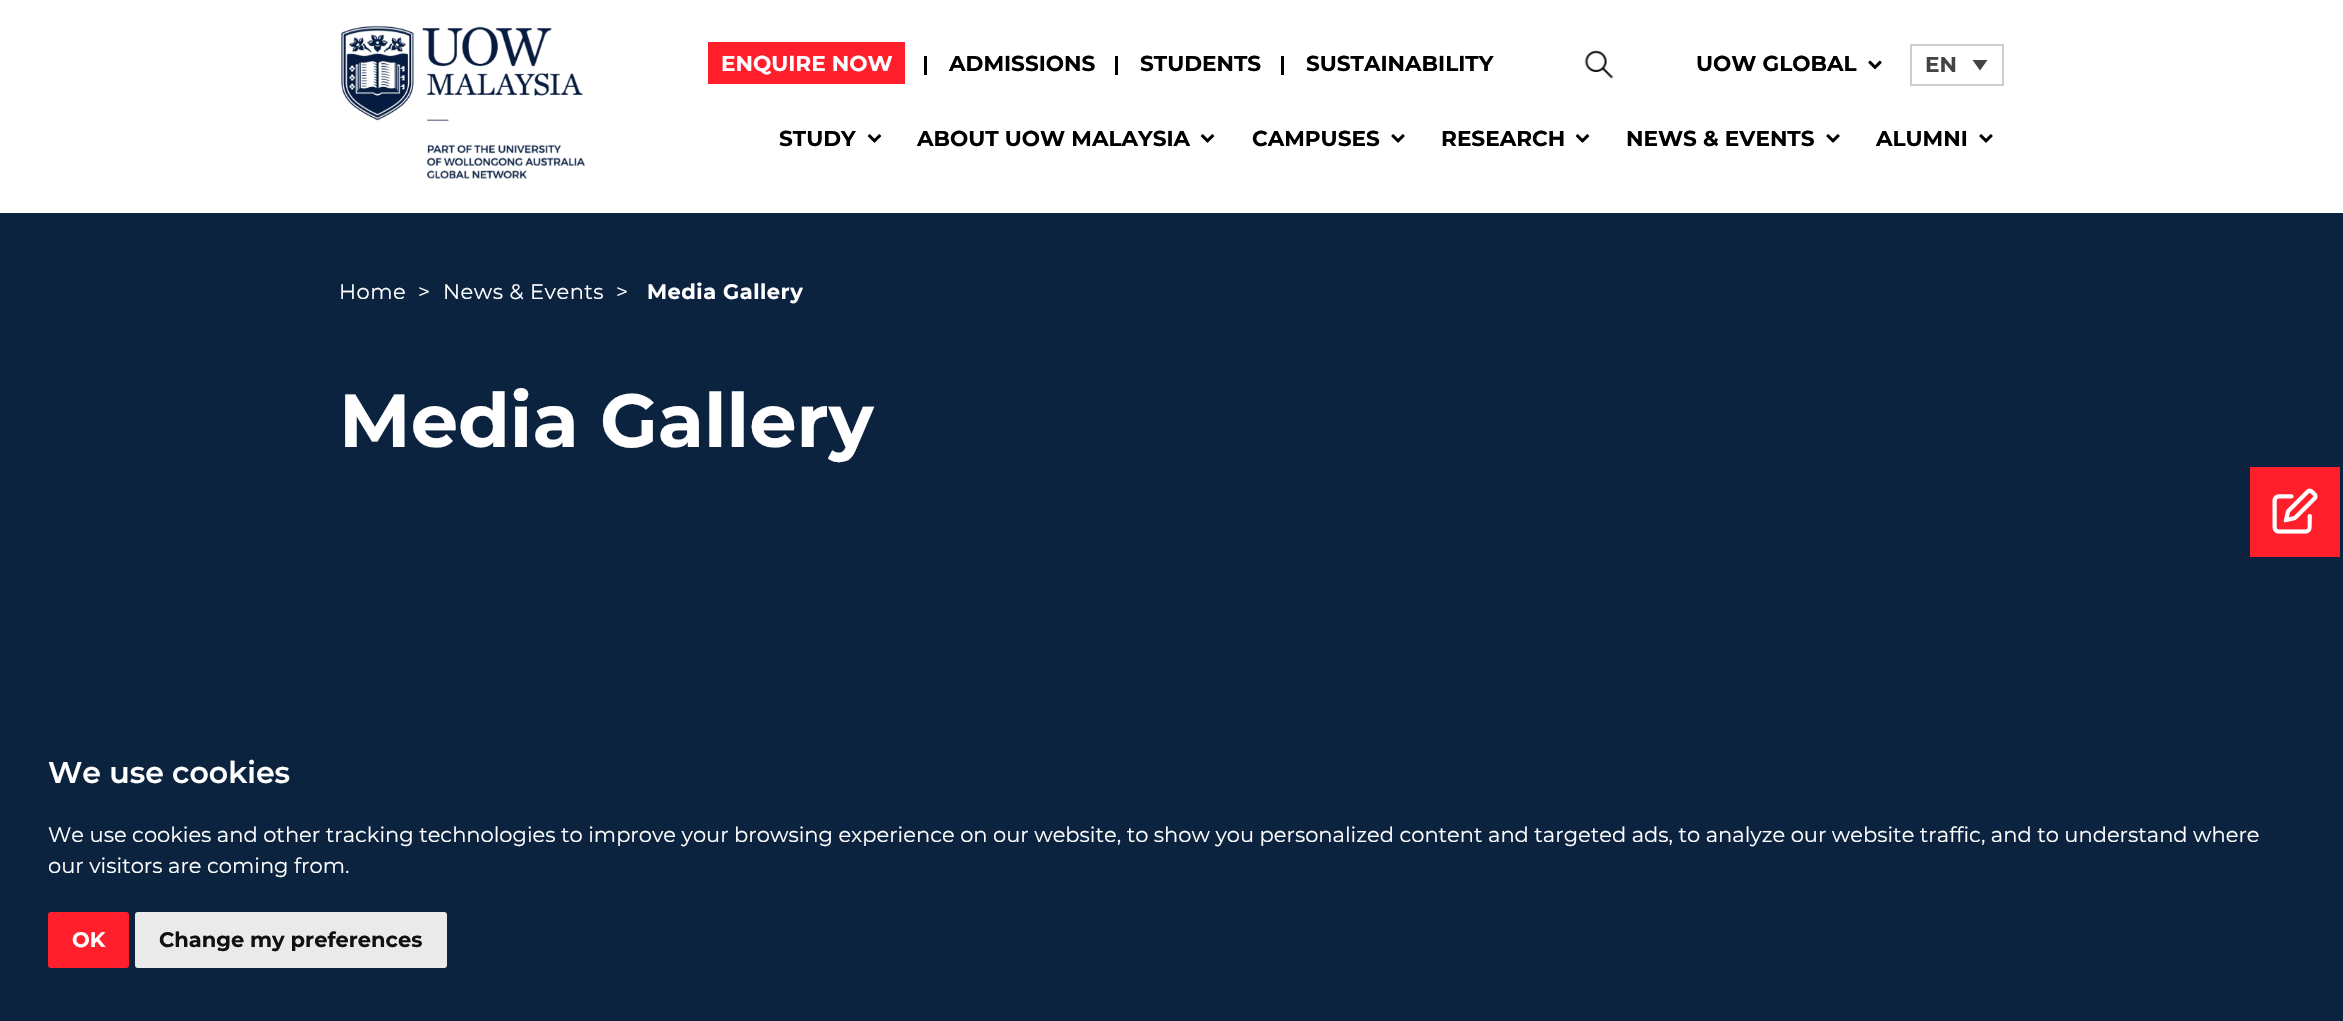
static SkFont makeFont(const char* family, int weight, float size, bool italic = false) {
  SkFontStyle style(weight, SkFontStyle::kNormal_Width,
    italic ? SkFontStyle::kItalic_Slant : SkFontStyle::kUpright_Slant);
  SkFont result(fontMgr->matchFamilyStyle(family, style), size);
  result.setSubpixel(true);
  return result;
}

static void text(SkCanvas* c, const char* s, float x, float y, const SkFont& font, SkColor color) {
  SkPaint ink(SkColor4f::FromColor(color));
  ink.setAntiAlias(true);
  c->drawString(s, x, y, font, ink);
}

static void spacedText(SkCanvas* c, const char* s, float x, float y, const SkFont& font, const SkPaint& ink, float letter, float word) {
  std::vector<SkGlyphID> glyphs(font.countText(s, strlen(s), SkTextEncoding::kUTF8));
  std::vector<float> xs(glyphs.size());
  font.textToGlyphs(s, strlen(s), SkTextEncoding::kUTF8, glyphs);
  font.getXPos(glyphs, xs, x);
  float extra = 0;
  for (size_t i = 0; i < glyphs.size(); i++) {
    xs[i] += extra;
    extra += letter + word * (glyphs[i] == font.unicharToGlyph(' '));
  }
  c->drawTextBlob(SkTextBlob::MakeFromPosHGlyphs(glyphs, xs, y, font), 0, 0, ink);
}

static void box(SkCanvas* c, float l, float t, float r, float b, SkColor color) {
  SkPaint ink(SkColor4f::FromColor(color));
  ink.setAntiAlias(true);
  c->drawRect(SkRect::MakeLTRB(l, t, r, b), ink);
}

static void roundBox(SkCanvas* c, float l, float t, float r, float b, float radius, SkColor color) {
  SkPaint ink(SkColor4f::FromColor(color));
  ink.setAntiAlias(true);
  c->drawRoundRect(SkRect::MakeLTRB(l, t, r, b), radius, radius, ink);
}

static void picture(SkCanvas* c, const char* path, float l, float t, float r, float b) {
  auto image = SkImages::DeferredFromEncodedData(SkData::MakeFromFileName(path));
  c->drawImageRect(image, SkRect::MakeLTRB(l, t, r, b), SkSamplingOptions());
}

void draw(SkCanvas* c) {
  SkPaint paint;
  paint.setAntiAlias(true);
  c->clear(0xffffffff);
  box(c, 708, 42, 905, 84, 0xffff1e2c);
  SkFont face1 = makeFont("Montserrat", 700, 21.6f);
  text(c, "ENQUIRE NOW", 721, 71, face1, 0xffffffff);
  box(c, 924, 56, 927, 75, 0xff000000);
  text(c, "ADMISSIONS", 949, 71, face1, 0xff000000);
  box(c, 1115, 56, 1118, 75, 0xff000000);
  text(c, "STUDENTS", 1140, 71, face1, 0xff000000);
  box(c, 1281, 56, 1284, 75, 0xff000000);
  text(c, "SUSTAINABILITY", 1306, 71, face1, 0xff000000);
  picture(c, "img_01.png", 1584, 50, 1614, 79);
  text(c, "UOW GLOBAL", 1696, 71, face1, 0xff000000);
  picture(c, "img_02.png", 1868, 60, 1882, 70);
  paint.setStyle(SkPaint::kStroke_Style);
  paint.setStrokeWidth(2);
  paint.setColor(0xffcdcdcd);
  c->drawRect(SkRect::MakeLTRB(1911, 45, 2003, 85), paint);
  text(c, "EN", 1925, 72, face1, 0xff444444);
  paint.setStyle(SkPaint::kFill_Style);
  paint.setColor(0xff444444);
  c->drawPath(SkPathBuilder().moveTo(1972.5f, 60).lineTo(1987.5f, 60).lineTo(1980, 70.5f).close().detach(), paint);
  picture(c, "img_03.png", 341, 25, 585, 179);
  text(c, "STUDY", 779, 146, face1, 0xff000000);
  picture(c, "img_04.png", 867, 134, 882, 143);
  text(c, "ABOUT UOW MALAYSIA", 917, 146, face1, 0xff000000);
  picture(c, "img_04.png", 1200, 134, 1215, 143);
  text(c, "CAMPUSES", 1252, 146, face1, 0xff000000);
  picture(c, "img_05.png", 1391, 134, 1405, 143);
  text(c, "RESEARCH", 1441, 146, face1, 0xff000000);
  picture(c, "img_04.png", 1575, 134, 1590, 143);
  text(c, "NEWS & EVENTS", 1626, 146, face1, 0xff000000);
  picture(c, "img_05.png", 1826, 134, 1840, 143);
  text(c, "ALUMNI", 1876, 146, face1, 0xff000000);
  picture(c, "img_05.png", 1979, 134, 1993, 143);
  box(c, 0, 213, 2343, 1021, 0xff0c2340);
  SkFont face2 = makeFont("Montserrat", 400, 21);
  paint.setColor(0xffffffff);
  spacedText(c, "Home", 339, 299, face2, paint, 0.5f, 0);
  spacedText(c, ">", 418, 299, face2, paint, 0.5f, 0);
  spacedText(c, "News & Events", 443, 299, face2, paint, 0.5f, 0);
  spacedText(c, ">", 616, 299, face2, paint, 0.5f, 0);
  SkFont face3 = makeFont("Montserrat", 700, 21);
  spacedText(c, "Media Gallery", 647, 299, face3, paint, 0.5f, 0);
  SkFont face4 = makeFont("Montserrat", 700, 75);
  text(c, "Media Gallery", 339, 447, face4, 0xffffffff);
  box(c, 2250, 467, 2340, 557, 0xffff1e2c);
  picture(c, "img_06.png", 2272, 488, 2318, 534);
  SkFont face5 = makeFont("Montserrat", 600, 30);
  text(c, "We use cookies", 48, 783, face5, 0xffffffff);
  text(c, "We use cookies and other tracking technologies to improve your browsing experience on our website, to show you personalized content and targeted ads, to analyze our website traffic, and to understand where", 48, 842, face2, 0xffffffff);
  text(c, "our visitors are coming from.", 48, 873, face2, 0xffffffff);
  roundBox(c, 48, 912, 129, 968, 3, 0xffff1e2c);
  text(c, "OK", 72, 947, face3, 0xffffffff);
  roundBox(c, 135, 912, 447, 968, 3, 0xffeaeaea);
  text(c, "Change my preferences", 159, 947, face3, 0xff111111);
}
